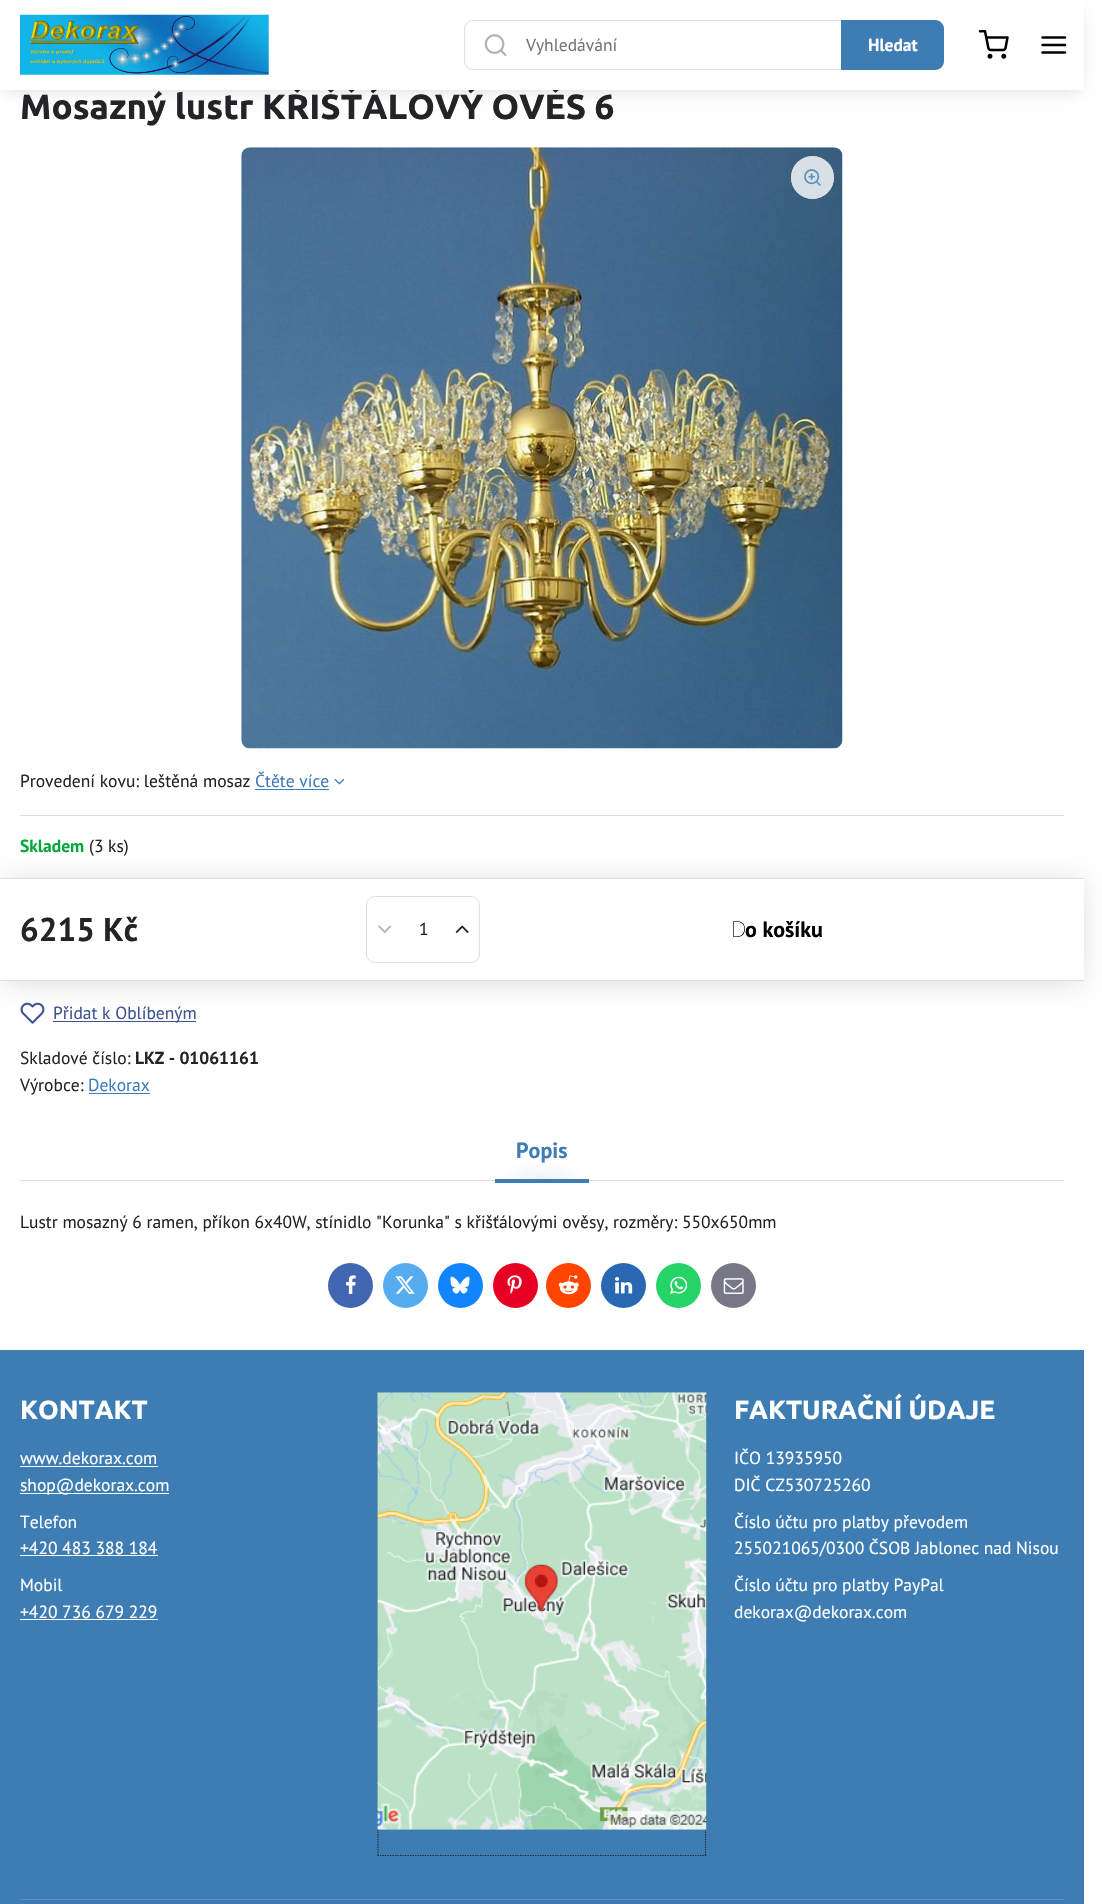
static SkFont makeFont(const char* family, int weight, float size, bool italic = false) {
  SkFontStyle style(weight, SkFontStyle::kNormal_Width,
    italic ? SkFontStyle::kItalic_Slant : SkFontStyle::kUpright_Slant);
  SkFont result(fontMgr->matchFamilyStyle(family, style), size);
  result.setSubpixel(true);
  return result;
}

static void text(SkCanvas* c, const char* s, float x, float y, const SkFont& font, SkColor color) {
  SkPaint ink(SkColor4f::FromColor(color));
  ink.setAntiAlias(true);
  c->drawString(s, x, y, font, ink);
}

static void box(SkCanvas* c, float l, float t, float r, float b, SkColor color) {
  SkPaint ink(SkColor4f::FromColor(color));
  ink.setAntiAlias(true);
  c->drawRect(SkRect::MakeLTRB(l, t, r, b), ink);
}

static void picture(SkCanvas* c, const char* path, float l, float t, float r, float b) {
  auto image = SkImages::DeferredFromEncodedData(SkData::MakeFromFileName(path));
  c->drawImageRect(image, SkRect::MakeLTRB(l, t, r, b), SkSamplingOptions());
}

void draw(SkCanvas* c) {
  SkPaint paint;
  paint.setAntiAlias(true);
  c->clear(0xffffffff);
  paint.setColor(0x26000014);
  paint.setMaskFilter(SkMaskFilter::MakeBlur(kNormal_SkBlurStyle, 7.5f));
  c->drawRect(SkRect::MakeLTRB(5, 10, 1079, 90), paint);
  paint.setMaskFilter(nullptr);
  SkFont face1 = makeFont("Ubuntu", 700, 35);
  text(c, "Mosazný lustr KŘIŠŤÁLOVÝ OVĚS 6", 20, 119, face1, 0xff242326);
  box(c, 0, 0, 1084, 90, 0xffffffff);
  picture(c, "img_01.png", 20, 14, 269, 75);
  paint.setStyle(SkPaint::kStroke_Style);
  paint.setStrokeWidth(1);
  paint.setColor(0xffdfdfdf);
  c->drawRoundRect(SkRect::MakeLTRB(464.5f, 20.5f, 943.5f, 69.5f), 8.5f, 8.5f, paint);
  picture(c, "img_02.png", 484, 34, 507, 56);
  SkFont face2 = makeFont("PT Sans", 400, 17.5f);
  text(c, "Vyhledávání", 526, 51, face2, 0xff757575);
  paint.setStyle(SkPaint::kFill_Style);
  paint.setColor(0xff3e7cb4);
  c->drawPath(SkPathBuilder().moveTo(841, 20).lineTo(935, 20).cubicTo(940, 20, 944, 24, 944, 29).lineTo(944, 61).cubicTo(944, 66, 940, 70, 935, 70).lineTo(841, 70).close().detach(), paint);
  SkFont face3 = makeFont("PT Sans", 700, 17.5f);
  text(c, "Hledat", 868, 51, face3, 0xffffffff);
  picture(c, "img_03.png", 978, 30, 1009, 59);
  picture(c, "img_04.png", 1041, 36, 1067, 54);
  text(c, "Provedení kovu: leštěná mosaz", 20, 787, face2, 0xff242326);
  text(c, "Čtěte více", 255, 787, face2, 0xff3e7cb4);
  box(c, 255, 789, 329, 790, 0xff3e7cb4);
  picture(c, "img_05.png", 334, 778, 345, 785);
  box(c, 20, 815, 1064, 816, 0xffdfdfdf);
  text(c, "Skladem", 20, 852, face3, 0xff07a83c);
  text(c, "(3 ks)", 89, 852, face2, 0xff242326);
  picture(c, "img_08.png", 20, 1002, 45, 1024);
  paint.setColor(0x26000014);
  paint.setMaskFilter(SkMaskFilter::MakeBlur(kNormal_SkBlurStyle, 13));
  c->drawRect(SkRect::MakeLTRB(3, 883, 1081, 981), paint);
  paint.setMaskFilter(nullptr);
  box(c, 0, 879, 1084, 980, 0xffffffff);
  box(c, 0, 878, 1084, 879, 0xffdfdfdf);
  box(c, 0, 980, 1084, 981, 0xffdfdfdf);
  SkFont face4 = makeFont("PT Sans", 700, 33);
  text(c, "6215 Kč", 20, 941, face4, 0xff242326);
  paint.setStyle(SkPaint::kStroke_Style);
  paint.setColor(0xffdfdfdf);
  c->drawRoundRect(SkRect::MakeLTRB(366.5f, 896.5f, 479.5f, 962.5f), 8.5f, 8.5f, paint);
  picture(c, "img_06.png", 378, 925, 391, 933);
  text(c, "1", 419, 935, face2, 0xff242326);
  picture(c, "img_07.png", 455, 925, 469, 933);
  SkFont face5 = makeFont("Noto Sans", 100, 22);
  text(c, "D", 731, 937, face5, 0xff000000);
  SkFont face6 = makeFont("PT Sans", 700, 22);
  text(c, "o košíku", 745, 937, face6, 0xff000000);
  box(c, 53, 1021, 196, 1022, 0xff3e5490);
  text(c, "Přidat k Oblíbeným", 53, 1019, face2, 0xff3e5490);
  text(c, "Skladové číslo:", 20, 1064, face2, 0xff242326);
  text(c, "LKZ - 01061161", 135, 1064, face3, 0xff242326);
  text(c, "Výrobce:", 20, 1091, face2, 0xff242326);
  text(c, "Dekorax", 88, 1091, face2, 0xff3e7cb4);
  box(c, 89, 1093, 150, 1094, 0xff3e7cb4);
  picture(c, "img_09.png", 241, 147, 843, 749);
  paint.setStyle(SkPaint::kFill_Style);
  paint.setColor(0xccffffff);
  c->drawCircle(812.5f, 177.5f, 21.5f, paint);
  paint.setStyle(SkPaint::kStroke_Style);
  paint.setColor(0xccdfdfdf);
  c->drawCircle(812.5f, 177.5f, 21, paint);
  picture(c, "img_10.png", 804, 169, 821, 186);
  box(c, 20, 1180, 1064, 1181, 0xffdfdfdf);
  paint.setStyle(SkPaint::kFill_Style);
  paint.setColor(0xff3e7cb4);
  c->drawPath(SkPathBuilder().moveTo(495, 1180).lineTo(495, 1183).lineTo(589, 1183).lineTo(589, 1123).lineTo(589, 1180).close().detach(), paint);
  {
    const SkColor colors[] = {0xffeef3f8, 0xffffffff};
    const float stops[] = {0, 1};
    SkMatrix m = SkMatrix::Translate(542, 1180).preScale(47, 20);
    paint.setShader(SkGradientShader::MakeRadial({0, 0}, 1, colors, stops, 2, SkTileMode::kClamp, 0, &m));
    paint.setAlpha(255);
  }
  c->drawRect(SkRect::MakeLTRB(502, 1163, 582, 1179), paint);
  box(c, 495, 1179, 589, 1180, 0xff3e7cb4);
  text(c, "Popis", 516, 1158, face6, 0xff3e7cb4);
  text(c, "Lustr mosazný 6 ramen, příkon 6x40W, stínidlo \"Korunka\" s křišťálovými ověsy, rozměry: 550x650mm", 20, 1228, face2, 0xff242326);
  paint.setShader(nullptr);
  paint.setColor(0xff4267b2);
  c->drawCircle(350.5f, 1285.5f, 22.5f, paint);
  picture(c, "img_11.png", 346, 1275, 356, 1294);
  paint.setColor(0xff55acee);
  c->drawCircle(405.5f, 1285.5f, 22.5f, paint);
  picture(c, "img_12.png", 395, 1276, 415, 1294);
  paint.setColor(0xff1185fe);
  c->drawCircle(460.5f, 1285.5f, 22.5f, paint);
  picture(c, "img_13.png", 450, 1276, 470, 1294);
  paint.setColor(0xffe60023);
  c->drawCircle(515.5f, 1285.5f, 22.5f, paint);
  picture(c, "img_14.png", 507, 1275, 522, 1294);
  paint.setColor(0xffff4500);
  c->drawCircle(568.5f, 1285.5f, 22.5f, paint);
  picture(c, "img_15.png", 558, 1275, 579, 1295);
  paint.setColor(0xff2867b2);
  c->drawCircle(623.5f, 1285.5f, 22.5f, paint);
  picture(c, "img_16.png", 615, 1277, 633, 1294);
  paint.setColor(0xff25d366);
  c->drawCircle(678.5f, 1285.5f, 22.5f, paint);
  picture(c, "img_17.png", 670, 1276, 688, 1294);
  paint.setColor(0xff777788);
  c->drawCircle(733.5f, 1285.5f, 22.5f, paint);
  picture(c, "img_18.png", 723, 1278, 744, 1294);
  box(c, 0, 1350, 1084, 1904, 0xff3e7cb4);
  SkFont face7 = makeFont("Ubuntu", 700, 26.25f);
  text(c, "KONTAKT", 20, 1419, face7, 0xffffffff);
  text(c, "www.dekorax.com", 20, 1464, face2, 0xffffffff);
  box(c, 20, 1466, 158, 1467, 0xffffffff);
  box(c, 20, 1493, 169, 1494, 0xffffffff);
  text(c, "shop@dekorax.com", 20, 1491, face2, 0xffffffff);
  text(c, "Telefon", 20, 1528, face2, 0xffffffff);
  text(c, "+420 483 388 184", 20, 1554, face2, 0xffffffff);
  box(c, 20, 1555, 158, 1556, 0xffffffff);
  text(c, "Mobil", 20, 1591, face2, 0xffffffff);
  text(c, "+420 736 679 229", 20, 1618, face2, 0xffffffff);
  box(c, 20, 1619, 158, 1620, 0xffffffff);
  paint.setStyle(SkPaint::kStroke_Style);
  paint.setStrokeWidth(1.2f);
  paint.setColor(0xff242326);
  paint.setPathEffect(SkDashPathEffect::Make({{1.25f, 1.25f}}, 0));
  c->drawPath(SkPathBuilder().moveTo(377.5f, 1419.5f).lineTo(706, 1419.5f).detach(), paint);
  paint.setPathEffect(nullptr);
  paint.setPathEffect(SkDashPathEffect::Make({{1.25f, 1.25f}}, 0));
  c->drawPath(SkPathBuilder().moveTo(705.5f, 1419).lineTo(705.5f, 1856).detach(), paint);
  paint.setPathEffect(nullptr);
  paint.setPathEffect(SkDashPathEffect::Make({{1.25f, 1.25f}}, 0));
  c->drawPath(SkPathBuilder().moveTo(377.5f, 1855.5f).lineTo(706, 1855.5f).detach(), paint);
  paint.setPathEffect(nullptr);
  paint.setPathEffect(SkDashPathEffect::Make({{1.25f, 1.25f}}, 0));
  c->drawPath(SkPathBuilder().moveTo(378, 1419).lineTo(378, 1856).detach(), paint);
  paint.setPathEffect(nullptr);
  picture(c, "img_19.png", 377, 1392, 707, 1830);
  text(c, "FAKTURAČNÍ ÚDAJE", 734, 1419, face7, 0xffffffff);
  text(c, "IČO 13935950", 734, 1464, face2, 0xffffffff);
  text(c, "DIČ CZ530725260", 734, 1491, face2, 0xffffffff);
  text(c, "Číslo účtu pro platby převodem", 734, 1528, face2, 0xffffffff);
  text(c, "255021065/0300 ČSOB Jablonec nad Nisou", 734, 1554, face2, 0xffffffff);
  text(c, "Číslo účtu pro platby PayPal", 734, 1591, face2, 0xffffffff);
  text(c, "dekorax@dekorax.com", 734, 1618, face2, 0xffffffff);
  box(c, 20, 1899, 1064, 1900, 0xff5b90bf);
}
